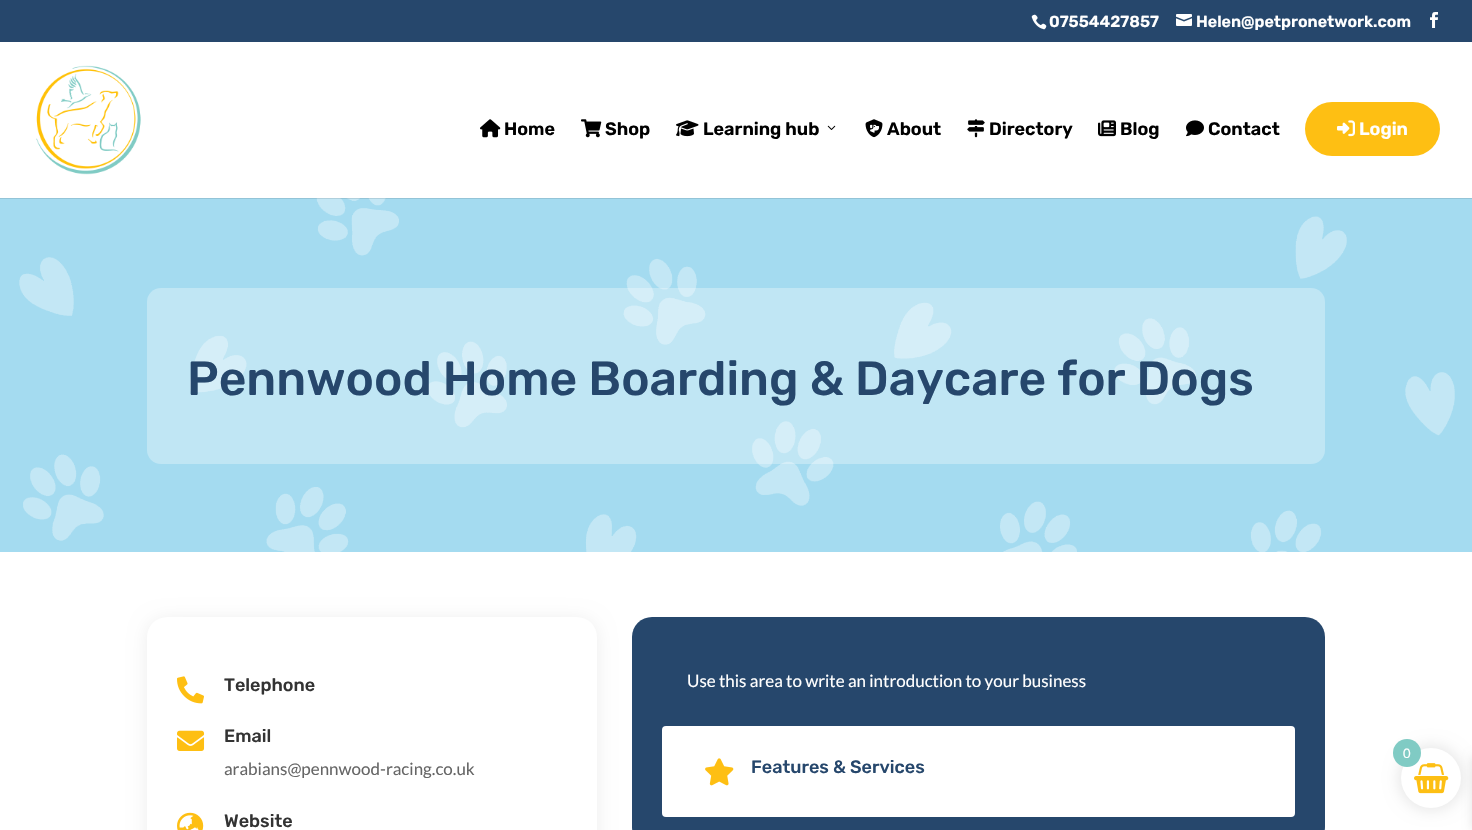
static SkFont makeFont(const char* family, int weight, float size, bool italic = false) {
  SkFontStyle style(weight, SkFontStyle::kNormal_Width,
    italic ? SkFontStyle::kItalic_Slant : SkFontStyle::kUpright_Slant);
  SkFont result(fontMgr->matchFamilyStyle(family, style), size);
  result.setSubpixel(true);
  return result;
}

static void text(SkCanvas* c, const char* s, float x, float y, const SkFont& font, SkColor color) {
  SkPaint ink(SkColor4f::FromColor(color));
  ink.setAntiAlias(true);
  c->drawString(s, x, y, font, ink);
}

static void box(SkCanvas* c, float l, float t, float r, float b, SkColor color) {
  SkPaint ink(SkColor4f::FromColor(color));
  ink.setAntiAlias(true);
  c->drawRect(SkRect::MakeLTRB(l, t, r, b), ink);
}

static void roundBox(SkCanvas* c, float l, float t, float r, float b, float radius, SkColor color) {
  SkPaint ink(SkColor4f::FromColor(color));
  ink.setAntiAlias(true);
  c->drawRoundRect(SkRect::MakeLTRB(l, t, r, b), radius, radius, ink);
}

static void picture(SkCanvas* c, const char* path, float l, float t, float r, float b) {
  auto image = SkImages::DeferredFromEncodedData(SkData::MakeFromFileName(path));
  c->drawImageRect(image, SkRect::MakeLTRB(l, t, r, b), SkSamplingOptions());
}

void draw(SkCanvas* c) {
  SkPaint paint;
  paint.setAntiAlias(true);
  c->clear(0xffffffff);
  box(c, 0, 0, 1472, 42, 0xff26476c);
  picture(c, "img_01.png", 1031, 14, 1047, 30);
  SkFont face1 = makeFont("Rubik", 600, 16);
  text(c, "07554427857", 1049, 27, face1, 0xffffffff);
  picture(c, "img_02.png", 1176, 14, 1192, 26);
  text(c, "Helen@petpronetwork.com", 1196, 27, face1, 0xffffffff);
  picture(c, "img_03.png", 1430, 12, 1438, 28);
  box(c, 0, 198, 1472, 552, 0xffa4dbf0);
  picture(c, "img_14.png", 19, 198, 1455, 552);
  box(c, 0, 198, 1472, 199, 0x1a000000);
  picture(c, "img_04.png", 36, 65, 141, 175);
  picture(c, "img_05.png", 480, 119, 501, 138);
  SkFont face2 = makeFont("Rubik", 600, 18);
  text(c, "Home", 504, 135, face2, 0xff000000);
  picture(c, "img_06.png", 581, 119, 602, 138);
  text(c, "Shop", 605, 135, face2, 0xff000000);
  picture(c, "img_07.png", 676, 120, 699, 137);
  text(c, "Learning hub", 703, 135, face2, 0xff000000);
  picture(c, "img_08.png", 827, 125, 836, 130);
  picture(c, "img_09.png", 865, 119, 883, 138);
  text(c, "About", 887, 135, face2, 0xff000000);
  picture(c, "img_10.png", 967, 119, 985, 138);
  text(c, "Directory", 989, 135, face2, 0xff000000);
  picture(c, "img_11.png", 1098, 120, 1116, 137);
  text(c, "Blog", 1120, 135, face2, 0xff000000);
  picture(c, "img_12.png", 1186, 120, 1204, 137);
  text(c, "Contact", 1208, 135, face2, 0xff000000);
  roundBox(c, 1305, 102, 1440, 156, 27, 0xfffebf13);
  picture(c, "img_13.png", 1337, 120, 1355, 137);
  text(c, "Login", 1359, 135, face2, 0xffffffff);
  roundBox(c, 147, 288, 1325, 464, 14, 0x4dffffff);
  SkFont face3 = makeFont("Rubik", 500, 48);
  text(c, "Pennwood Home Boarding & Daycare for Dogs", 187, 395, face3, 0xff26476c);
  paint.setColor(0x12000000);
  paint.setMaskFilter(SkMaskFilter::MakeBlur(kNormal_SkBlurStyle, 9));
  c->drawRoundRect(SkRect::MakeLTRB(147, 619, 597, 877), 20, 20, paint);
  paint.setMaskFilter(nullptr);
  roundBox(c, 147, 617, 597, 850, 20, 0xffffffff);
  picture(c, "img_15.png", 177, 676, 204, 704);
  SkFont face4 = makeFont("Rubik", 500, 18);
  text(c, "Telephone", 224, 691, face4, 0xff333333);
  picture(c, "img_16.png", 177, 730, 205, 751);
  text(c, "Email", 224, 742, face4, 0xff333333);
  SkFont face5 = makeFont("Lato", 400, 17);
  text(c, "arabians@pennwood-racing.co.uk", 224, 775, face5, 0xff666666);
  picture(c, "img_17.png", 177, 812, 204, 830);
  text(c, "Website", 224, 827, face4, 0xff333333);
  roundBox(c, 632, 617, 1325, 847, 20, 0xff26476c);
  text(c, "Use this area to write an introduction to your business", 687, 687, face5, 0xffffffff);
  roundBox(c, 662, 726, 1295, 817, 4, 0xffffffff);
  picture(c, "img_18.png", 705, 758, 734, 786);
  text(c, "Features & Services", 751, 773, face4, 0xff26476c);
  paint.setColor(0x1a000000);
  paint.setMaskFilter(SkMaskFilter::MakeBlur(kNormal_SkBlurStyle, 7.5f));
  c->drawRoundRect(SkRect::MakeLTRB(1399, 746, 1463, 810), 32, 32, paint);
  paint.setMaskFilter(nullptr);
  paint.setMaskFilter(SkMaskFilter::MakeBlur(kNormal_SkBlurStyle, 5));
  c->drawRect(SkRect::MakeLTRB(1472, 756, 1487, 829), paint);
  paint.setMaskFilter(nullptr);
  paint.setColor(0xffffffff);
  c->drawCircle(1431, 778, 30, paint);
  picture(c, "img_19.png", 1414, 763, 1449, 794);
  paint.setColor(0xff80cbc4);
  c->drawCircle(1407, 753, 14, paint);
  SkFont face6 = makeFont("Lato", 400, 13);
  text(c, "0", 1403, 758, face6, 0xffffffff);
}
